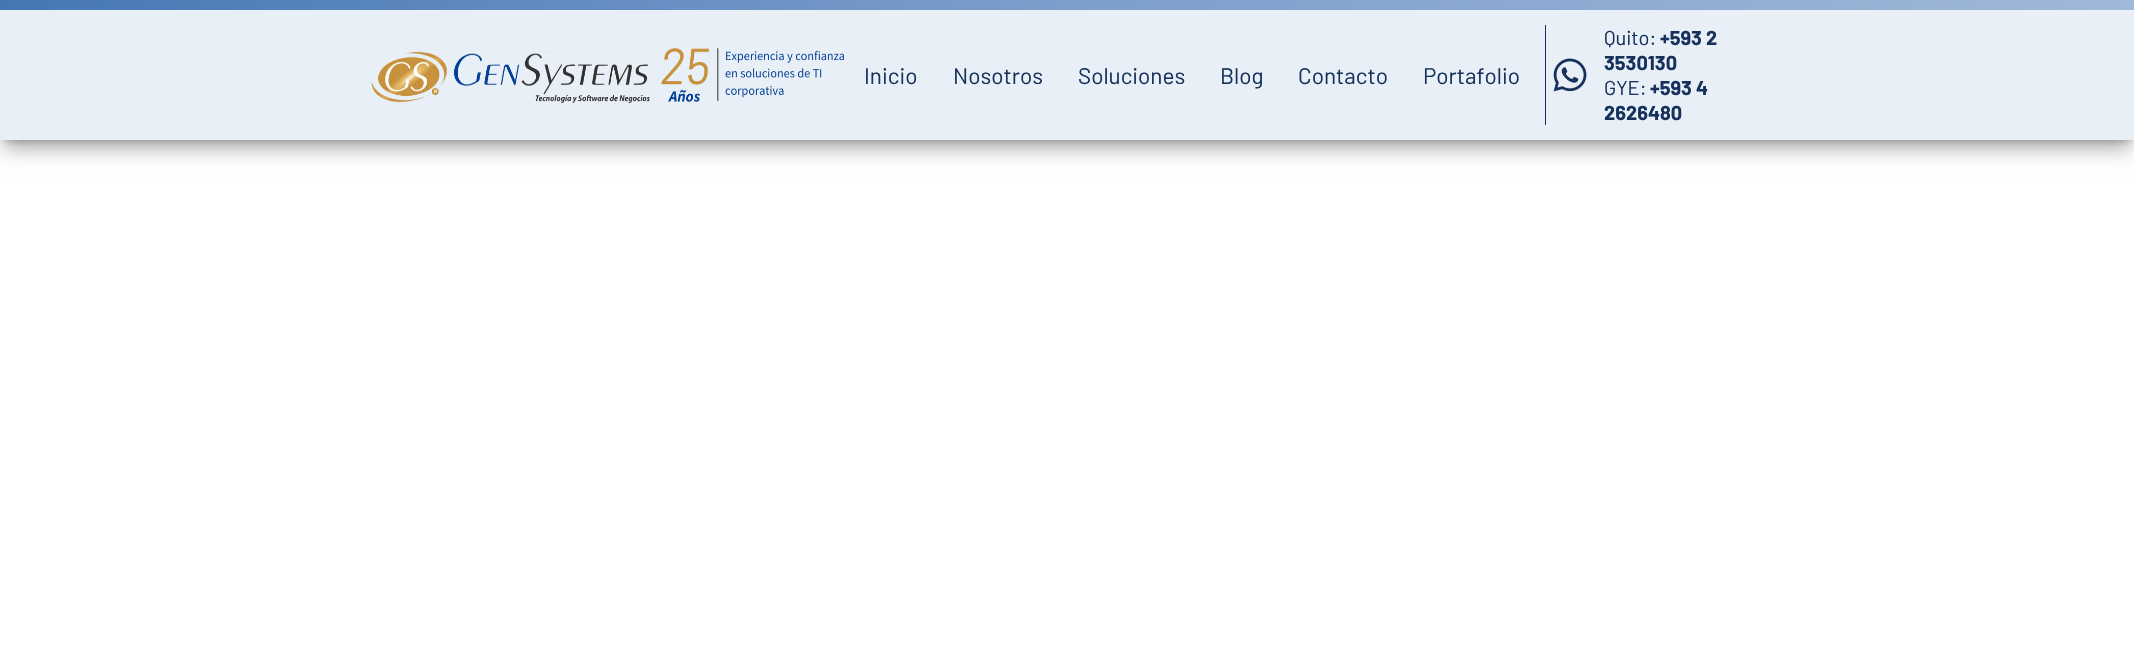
static SkFont makeFont(const char* family, int weight, float size, bool italic = false) {
  SkFontStyle style(weight, SkFontStyle::kNormal_Width,
    italic ? SkFontStyle::kItalic_Slant : SkFontStyle::kUpright_Slant);
  SkFont result(fontMgr->matchFamilyStyle(family, style), size);
  result.setSubpixel(true);
  return result;
}

static void text(SkCanvas* c, const char* s, float x, float y, const SkFont& font, SkColor color) {
  SkPaint ink(SkColor4f::FromColor(color));
  ink.setAntiAlias(true);
  c->drawString(s, x, y, font, ink);
}

static void box(SkCanvas* c, float l, float t, float r, float b, SkColor color) {
  SkPaint ink(SkColor4f::FromColor(color));
  ink.setAntiAlias(true);
  c->drawRect(SkRect::MakeLTRB(l, t, r, b), ink);
}

static void picture(SkCanvas* c, const char* path, float l, float t, float r, float b) {
  auto image = SkImages::DeferredFromEncodedData(SkData::MakeFromFileName(path));
  c->drawImageRect(image, SkRect::MakeLTRB(l, t, r, b), SkSamplingOptions());
}

void draw(SkCanvas* c) {
  SkPaint paint;
  paint.setAntiAlias(true);
  c->clear(0xffffffff);
  paint.setColor(0x4d000000);
  paint.setMaskFilter(SkMaskFilter::MakeBlur(kNormal_SkBlurStyle, 4));
  c->drawRect(SkRect::MakeLTRB(5, 10, 2130, 140), paint);
  paint.setMaskFilter(nullptr);
  paint.setMaskFilter(SkMaskFilter::MakeBlur(kNormal_SkBlurStyle, 9.5f));
  c->drawRect(SkRect::MakeLTRB(4, 16, 2131, 149), paint);
  paint.setMaskFilter(nullptr);
  box(c, 0, 10, 2134, 140, 0xffe9eff6);
  {
    const SkColor colors[] = {0xff4677b5, 0xff7c9ecb, 0xffa0b8d9};
    const float stops[] = {0, 0.5f, 1};
    const SkPoint ends[] = {{0, 5}, {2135, 5}};
    paint.setShader(SkGradientShader::MakeLinear(ends, colors, stops, 3, SkTileMode::kClamp));
    paint.setAlpha(255);
  }
  c->drawRect(SkRect::MakeLTRB(0, 0, 2134, 10), paint);
  picture(c, "img_01.png", 371, 48, 844, 104);
  SkFont face1 = makeFont("Barlow", 400, 22.5f);
  text(c, "Inicio", 864, 84, face1, 0xff16325c);
  text(c, "Nosotros", 953, 84, face1, 0xff16325c);
  text(c, "Soluciones", 1078, 84, face1, 0xff16325c);
  text(c, "Blog", 1220, 84, face1, 0xff16325c);
  text(c, "Contacto", 1298, 84, face1, 0xff16325c);
  text(c, "Portafolio", 1423, 84, face1, 0xff16325c);
  box(c, 1545, 25, 1546, 125, 0xff16325c);
  picture(c, "img_02.png", 1553, 58, 1587, 92);
  SkFont face2 = makeFont("Barlow", 400, 20);
  text(c, "Quito:", 1604, 45, face2, 0xff16325c);
  SkFont face3 = makeFont("Barlow", 700, 20);
  text(c, "+593 2", 1660, 45, face3, 0xff16325c);
  text(c, "3530130", 1604, 70, face3, 0xff16325c);
  text(c, "GYE:", 1604, 95, face2, 0xff16325c);
  text(c, "+593 4", 1650, 95, face3, 0xff16325c);
  text(c, "2626480", 1604, 120, face3, 0xff16325c);
}
